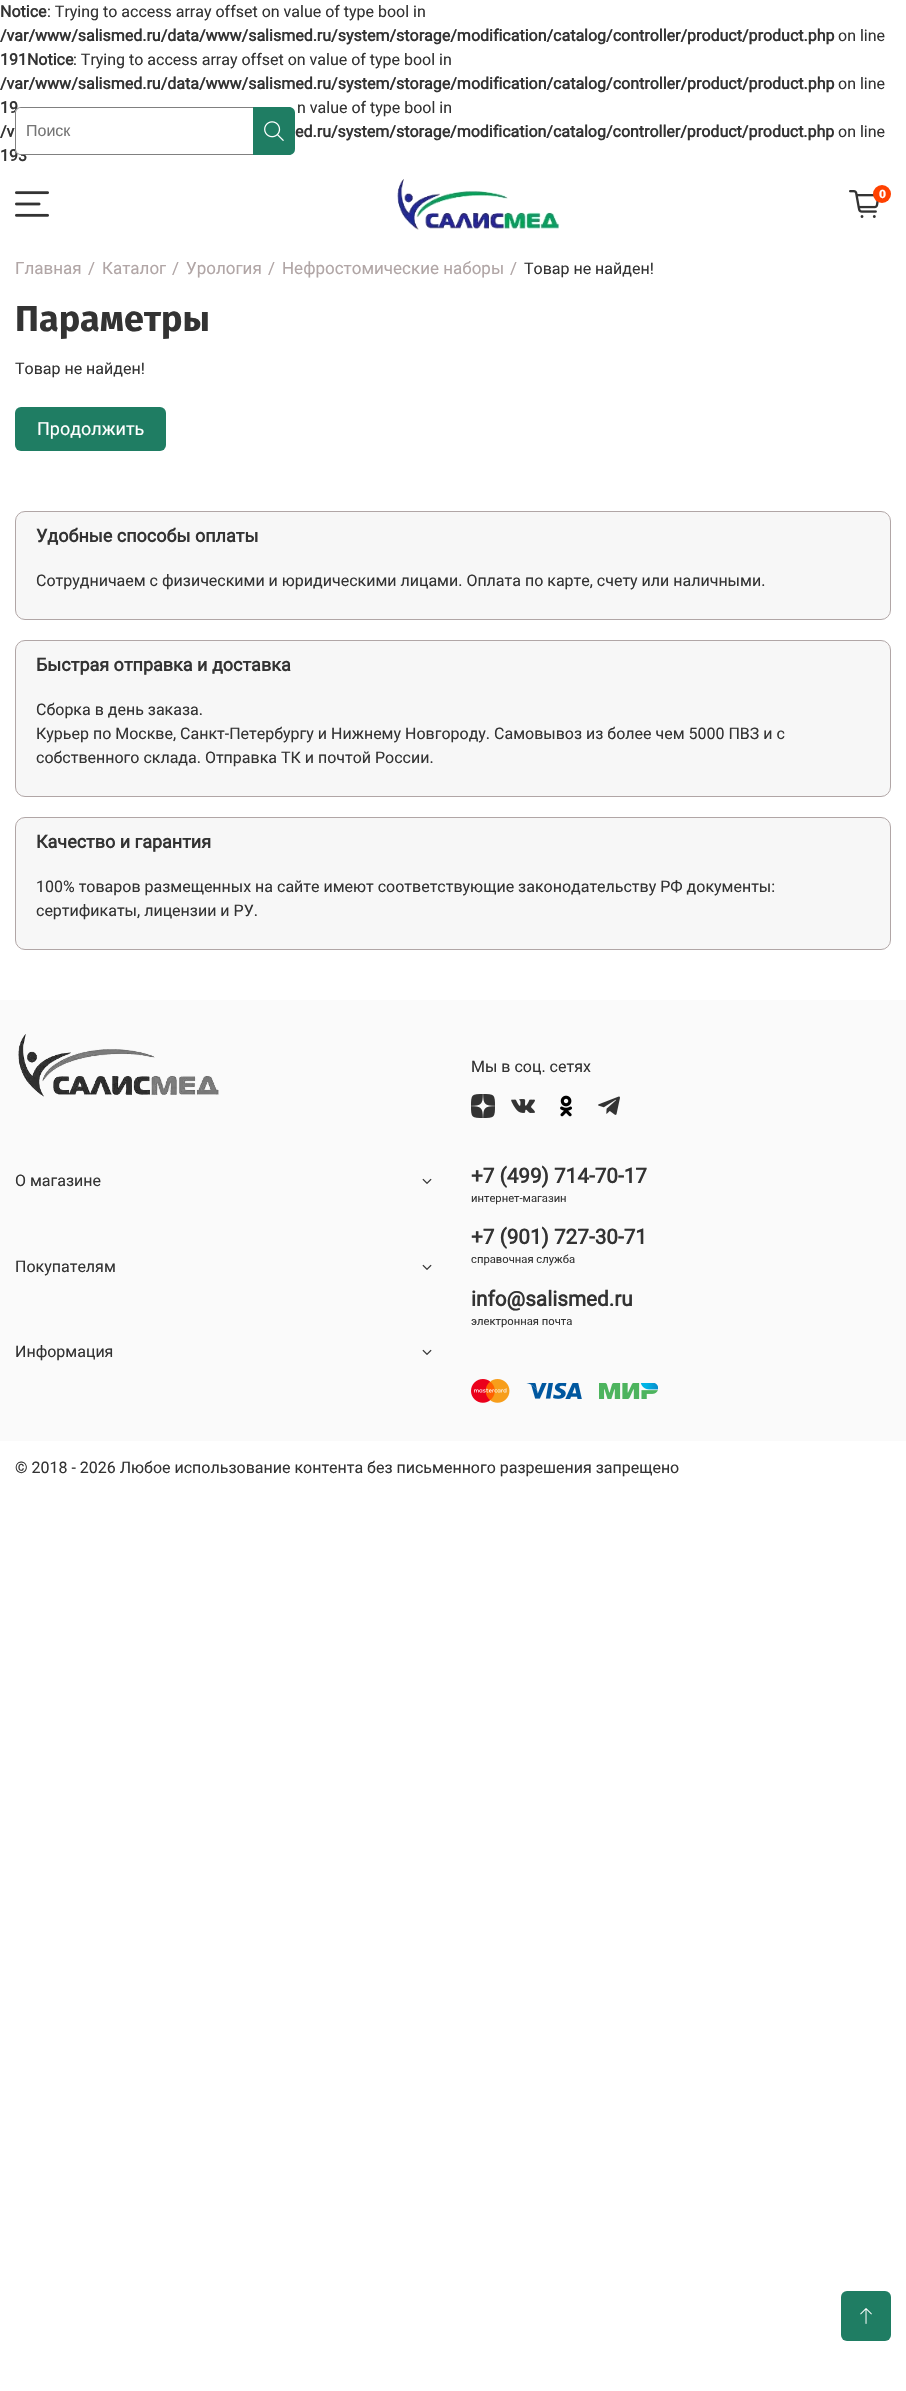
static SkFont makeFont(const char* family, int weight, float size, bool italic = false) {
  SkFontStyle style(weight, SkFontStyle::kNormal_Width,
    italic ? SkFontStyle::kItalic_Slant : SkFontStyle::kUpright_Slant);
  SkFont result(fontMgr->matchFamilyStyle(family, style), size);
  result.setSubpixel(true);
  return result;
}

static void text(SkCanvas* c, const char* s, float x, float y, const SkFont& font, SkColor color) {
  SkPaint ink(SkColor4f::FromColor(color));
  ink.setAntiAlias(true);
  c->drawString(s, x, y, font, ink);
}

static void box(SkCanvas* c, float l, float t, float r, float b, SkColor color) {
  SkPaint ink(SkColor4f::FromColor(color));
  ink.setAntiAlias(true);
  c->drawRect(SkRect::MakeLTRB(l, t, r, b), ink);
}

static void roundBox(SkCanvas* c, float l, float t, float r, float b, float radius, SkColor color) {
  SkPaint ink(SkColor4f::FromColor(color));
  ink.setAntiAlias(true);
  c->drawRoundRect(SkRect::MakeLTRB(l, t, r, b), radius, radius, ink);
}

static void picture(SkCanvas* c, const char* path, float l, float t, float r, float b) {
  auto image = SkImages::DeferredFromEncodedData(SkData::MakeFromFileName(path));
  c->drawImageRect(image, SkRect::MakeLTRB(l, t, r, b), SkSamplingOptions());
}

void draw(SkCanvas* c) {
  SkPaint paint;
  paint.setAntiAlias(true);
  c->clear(0xffffffff);
  SkFont face1 = makeFont("Roboto", 700, 16);
  text(c, "Notice", 0, 17, face1, 0xff333333);
  SkFont face2 = makeFont("Roboto", 400, 16);
  text(c, ": Trying to access array offset on value of type bool in", 47, 17, face2, 0xff333333);
  text(c, "/var/www/salismed.ru/data/www/salismed.ru/system/storage/modification/catalog/controller/product/product.php", 0, 41, face1, 0xff333333);
  text(c, "on line", 838, 41, face2, 0xff333333);
  text(c, "191Notice", 0, 65, face1, 0xff333333);
  text(c, ": Trying to access array offset on value of type bool in", 73, 65, face2, 0xff333333);
  text(c, "/var/www/salismed.ru/data/www/salismed.ru/system/storage/modification/catalog/controller/product/product.php", 0, 89, face1, 0xff333333);
  text(c, "on line", 838, 89, face2, 0xff333333);
  text(c, "19", 0, 113, face1, 0xff333333);
  text(c, "n value of type bool in", 297, 113, face2, 0xff333333);
  text(c, "/v", 0, 137, face1, 0xff333333);
  text(c, "ed.ru/system/storage/modification/catalog/controller/product/product.php", 295, 137, face1, 0xff333333);
  text(c, "193", 0, 161, face1, 0xff333333);
  paint.setColor(0xffffffff);
  c->drawPath(SkPathBuilder().moveTo(21, 107).lineTo(253, 107).lineTo(253, 155).lineTo(21, 155).cubicTo(17.5f, 155, 15, 152.5f, 15, 149).lineTo(15, 113).cubicTo(15, 109.5f, 17.5f, 107, 21, 107).close().detach(), paint);
  paint.setColor(0xff808080);
  c->drawPath(SkPathBuilder(SkPathFillType::kEvenOdd).moveTo(21, 107).lineTo(253, 107).lineTo(253, 155).lineTo(21, 155).cubicTo(18, 155, 15, 152, 15, 149).lineTo(15, 113).cubicTo(15, 110, 18, 107, 21, 107).close().moveTo(21, 108).lineTo(253, 108).lineTo(253, 154).lineTo(21, 154).cubicTo(18, 154, 16, 152, 16, 149).lineTo(16, 113).cubicTo(16, 110, 18, 108, 21, 108).close().detach(), paint);
  SkFont face3 = makeFont("Liberation Sans", 400, 16);
  text(c, "Поиск", 26, 136, face3, 0xff757575);
  paint.setColor(0xff1f7d63);
  c->drawPath(SkPathBuilder().moveTo(253, 107).lineTo(289, 107).cubicTo(292.5f, 107, 295, 109.5f, 295, 113).lineTo(295, 149).cubicTo(295, 152.5f, 292.5f, 155, 289, 155).lineTo(253, 155).close().detach(), paint);
  picture(c, "img_01.png", 264, 121, 284, 141);
  picture(c, "img_02.png", 15, 191, 49, 217);
  picture(c, "img_03.png", 397, 179, 560, 230);
  picture(c, "img_04.png", 849, 190, 879, 218);
  paint.setColor(0xffff4100);
  c->drawCircle(882, 194, 9, paint);
  SkFont face4 = makeFont("Fira Sans", 700, 12);
  text(c, "0", 879, 198, face4, 0xffffffff);
  text(c, "on line", 838, 137, face2, 0xff333333);
  SkFont face5 = makeFont("Roboto", 400, 17);
  text(c, "Главная", 15, 274, face5, 0xffb1a6a6);
  text(c, "/", 88, 274, face5, 0xffb1a6a6);
  text(c, "Каталог", 102, 274, face5, 0xffb1a6a6);
  text(c, "/", 172, 274, face5, 0xffb1a6a6);
  text(c, "Урология", 186, 274, face5, 0xffb1a6a6);
  text(c, "/", 268, 274, face5, 0xffb1a6a6);
  text(c, "Нефростомические наборы", 282, 274, face5, 0xffb1a6a6);
  text(c, "/", 510, 274, face5, 0xffb1a6a6);
  text(c, "Товар не найден!", 524, 274, face2, 0xff333333);
  SkFont face6 = makeFont("Fira Sans", 700, 36);
  text(c, "Параметры", 15, 331, face6, 0xff333333);
  text(c, "Товар не найден!", 15, 374, face2, 0xff333333);
  roundBox(c, 15, 407, 166, 451, 6, 0xff1f7d63);
  SkFont face7 = makeFont("Roboto", 400, 18);
  text(c, "Продолжить", 37, 435, face7, 0xffffffff);
  paint.setColor(0xfff7f7f7);
  c->drawRoundRect(SkRect::MakeLTRB(15.5f, 511.5f, 890.5f, 619.5f), 9.5f, 9.5f, paint);
  paint.setStyle(SkPaint::kStroke_Style);
  paint.setStrokeWidth(1);
  paint.setColor(0xffb1a6a6);
  c->drawRoundRect(SkRect::MakeLTRB(15.5f, 511.5f, 890.5f, 619.5f), 9.5f, 9.5f, paint);
  SkFont face8 = makeFont("Roboto", 700, 18);
  text(c, "Удобные способы оплаты", 36, 542, face8, 0xff333333);
  text(c, "Сотрудничаем с физическими и юридическими лицами. Оплата по карте, счету или наличными.", 36, 586, face2, 0xff333333);
  paint.setStyle(SkPaint::kFill_Style);
  paint.setColor(0xfff7f7f7);
  c->drawRoundRect(SkRect::MakeLTRB(15.5f, 640.5f, 890.5f, 796.5f), 9.5f, 9.5f, paint);
  paint.setStyle(SkPaint::kStroke_Style);
  paint.setColor(0xffb1a6a6);
  c->drawRoundRect(SkRect::MakeLTRB(15.5f, 640.5f, 890.5f, 796.5f), 9.5f, 9.5f, paint);
  text(c, "Быстрая отправка и доставка", 36, 671, face8, 0xff333333);
  text(c, "Сборка в день заказа.", 36, 715, face2, 0xff333333);
  text(c, "Курьер по Москве, Санкт-Петербургу и Нижнему Новгороду. Самовывоз из более чем 5000 ПВЗ и с", 36, 739, face2, 0xff333333);
  text(c, "собственного склада. Отправка ТК и почтой России.", 36, 763, face2, 0xff333333);
  paint.setStyle(SkPaint::kFill_Style);
  paint.setColor(0xfff7f7f7);
  c->drawRoundRect(SkRect::MakeLTRB(15.5f, 817.5f, 890.5f, 949.5f), 9.5f, 9.5f, paint);
  paint.setStyle(SkPaint::kStroke_Style);
  paint.setColor(0xffb1a6a6);
  c->drawRoundRect(SkRect::MakeLTRB(15.5f, 817.5f, 890.5f, 949.5f), 9.5f, 9.5f, paint);
  text(c, "Качество и гарантия", 36, 848, face8, 0xff333333);
  text(c, "100% товаров размещенных на сайте имеют соответствующие законодательству РФ документы:", 36, 892, face2, 0xff333333);
  text(c, "сертификаты, лицензии и РУ.", 36, 916, face2, 0xff333333);
  box(c, 0, 1000, 906, 1441, 0xfffafafa);
  picture(c, "img_05.png", 18, 1034, 219, 1097);
  text(c, "О магазине", 15, 1186, face2, 0xff333333);
  picture(c, "img_06.png", 422, 1178, 432, 1184);
  text(c, "Покупателям", 15, 1272, face2, 0xff333333);
  picture(c, "img_06.png", 422, 1264, 432, 1270);
  text(c, "Информация", 15, 1357, face2, 0xff333333);
  picture(c, "img_06.png", 422, 1349, 432, 1355);
  text(c, "Мы в соц. сетях", 471, 1072, face2, 0xff333333);
  picture(c, "img_07.png", 471, 1094, 495, 1118);
  picture(c, "img_08.png", 511, 1099, 535, 1113);
  picture(c, "img_09.png", 560, 1095, 572, 1117);
  picture(c, "img_10.png", 598, 1096, 620, 1115);
  SkFont face9 = makeFont("Roboto", 700, 20.75f);
  text(c, "+7 (499) 714-70-17", 471, 1183, face9, 0xff333333);
  SkFont face10 = makeFont("Roboto", 400, 11.25f);
  text(c, "интернет-магазин", 471, 1202, face10, 0xff333333);
  text(c, "+7 (901) 727-30-71", 471, 1244, face9, 0xff333333);
  text(c, "справочная служба", 471, 1263, face10, 0xff333333);
  text(c, "info@salismed.ru", 471, 1306, face9, 0xff333333);
  text(c, "электронная почта", 471, 1325, face10, 0xff333333);
  picture(c, "img_11.png", 471, 1379, 510, 1403);
  picture(c, "img_12.png", 526, 1383, 582, 1399);
  picture(c, "img_13.png", 599, 1383, 658, 1399);
  text(c, "© 2018 - 2026 Любое использование контента без письменного разрешения запрещено", 15, 1473, face2, 0xff333333);
  roundBox(c, 841, 2291, 891, 2341, 6, 0xff1f7d63);
  picture(c, "img_14.png", 860, 2308, 872, 2324);
}
